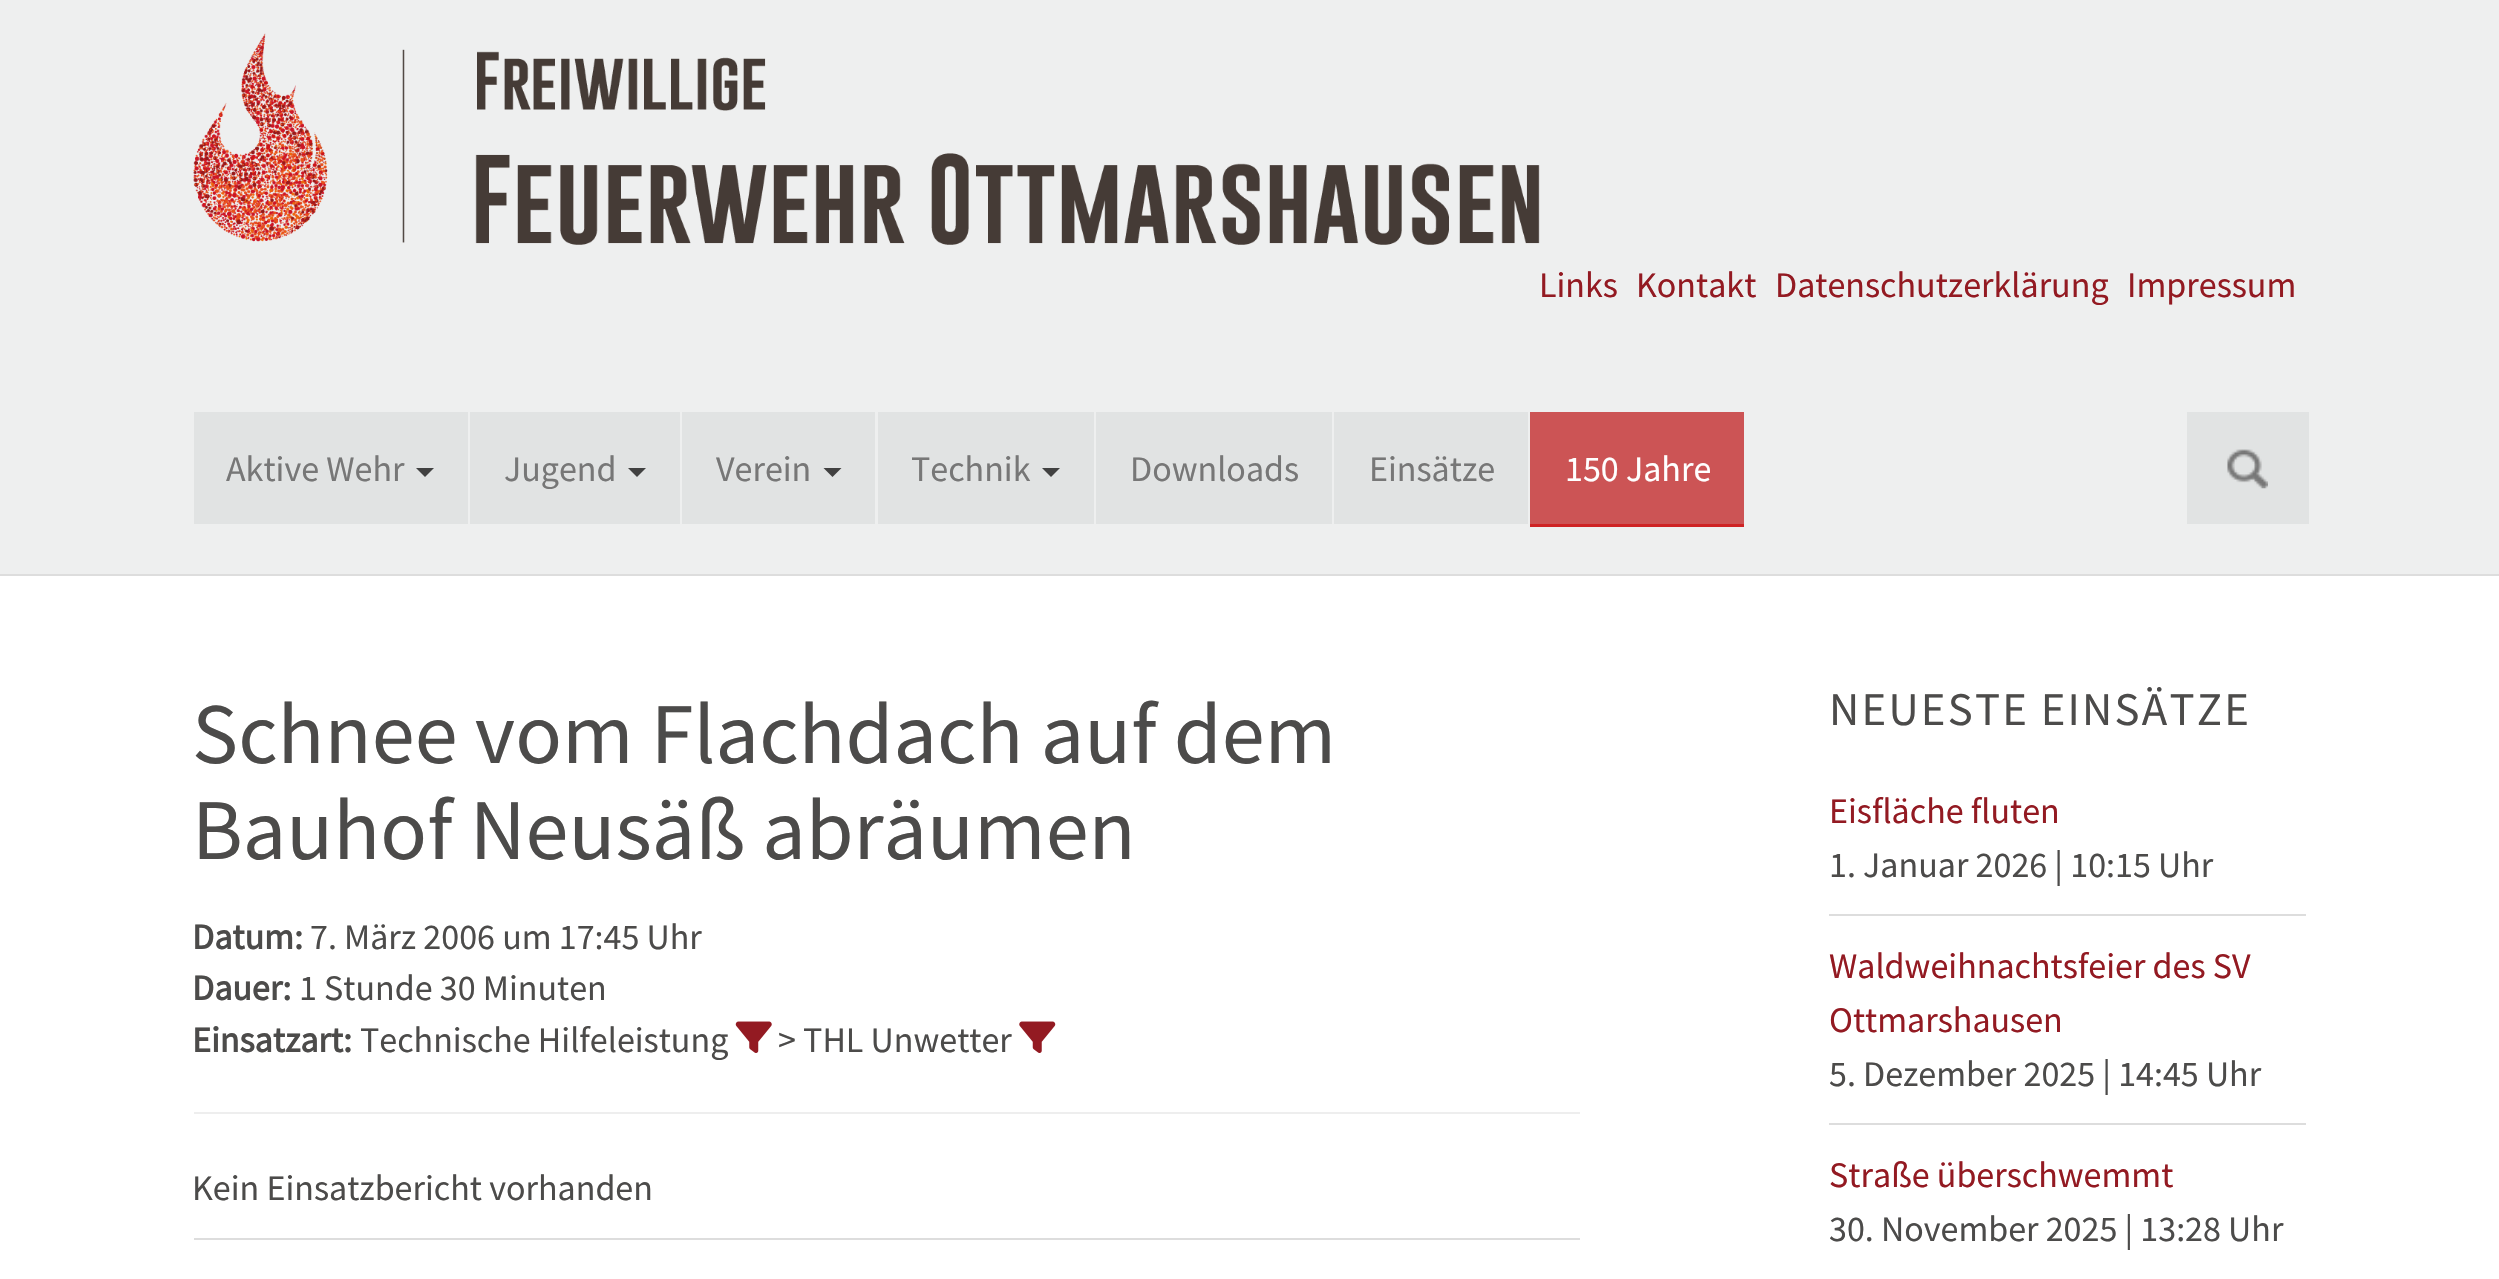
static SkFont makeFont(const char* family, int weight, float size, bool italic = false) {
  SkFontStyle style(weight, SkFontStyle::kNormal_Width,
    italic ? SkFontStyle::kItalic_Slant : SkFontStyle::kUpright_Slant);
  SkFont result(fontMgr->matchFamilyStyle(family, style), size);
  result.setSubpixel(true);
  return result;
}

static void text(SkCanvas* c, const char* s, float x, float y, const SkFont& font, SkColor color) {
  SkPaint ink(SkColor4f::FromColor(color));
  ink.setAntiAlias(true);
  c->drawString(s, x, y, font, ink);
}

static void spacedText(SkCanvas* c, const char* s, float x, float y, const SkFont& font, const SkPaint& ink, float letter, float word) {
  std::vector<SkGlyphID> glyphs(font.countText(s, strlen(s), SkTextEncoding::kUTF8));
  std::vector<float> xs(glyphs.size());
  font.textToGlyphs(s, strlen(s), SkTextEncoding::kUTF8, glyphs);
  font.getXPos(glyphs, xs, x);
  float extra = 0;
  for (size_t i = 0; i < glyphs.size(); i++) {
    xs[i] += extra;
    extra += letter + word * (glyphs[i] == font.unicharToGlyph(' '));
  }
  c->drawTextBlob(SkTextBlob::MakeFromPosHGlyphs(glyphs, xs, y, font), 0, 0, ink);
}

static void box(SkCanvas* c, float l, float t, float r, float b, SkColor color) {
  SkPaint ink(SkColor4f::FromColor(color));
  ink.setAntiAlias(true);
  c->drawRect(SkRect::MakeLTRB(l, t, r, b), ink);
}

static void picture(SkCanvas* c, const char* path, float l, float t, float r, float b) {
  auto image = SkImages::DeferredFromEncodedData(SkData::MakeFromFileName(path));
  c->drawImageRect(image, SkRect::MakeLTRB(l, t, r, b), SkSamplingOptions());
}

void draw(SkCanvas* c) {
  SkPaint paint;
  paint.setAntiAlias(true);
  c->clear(0xffffffff);
  box(c, 0, 0, 2499, 574, 0xffeeefef);
  box(c, 0, 574, 2499, 576, 0xffdddddd);
  picture(c, "img_01.png", 193, 33, 1540, 245);
  SkFont face1 = makeFont("Source Sans Pro", 400, 36);
  text(c, "Links", 1539, 297, face1, 0xff931a22);
  text(c, "Kontakt", 1636, 297, face1, 0xff931a22);
  text(c, "Datenschutzerklärung", 1775, 297, face1, 0xff931a22);
  text(c, "Impressum", 2127, 297, face1, 0xff931a22);
  box(c, 194, 412, 468, 524, 0xffe1e3e3);
  text(c, "Aktive Wehr", 226, 481, face1, 0xff777777);
  paint.setColor(0xff414141);
  c->drawPath(SkPathBuilder().moveTo(416, 468).lineTo(434, 468).lineTo(425, 477).close().detach(), paint);
  box(c, 470, 412, 680, 524, 0xffe1e3e3);
  text(c, "Jugend", 504, 481, face1, 0xff777777);
  c->drawPath(SkPathBuilder().moveTo(628, 468).lineTo(646, 468).lineTo(637, 477).close().detach(), paint);
  box(c, 682, 412, 875, 524, 0xffe1e3e3);
  text(c, "Verein", 716, 481, face1, 0xff777777);
  c->drawPath(SkPathBuilder().moveTo(823.5f, 468).lineTo(841.5f, 468).lineTo(832.5f, 477).close().detach(), paint);
  box(c, 878, 412, 1094, 524, 0xffe1e3e3);
  text(c, "Technik", 911, 481, face1, 0xff777777);
  c->drawPath(SkPathBuilder().moveTo(1042, 468).lineTo(1060, 468).lineTo(1051, 477).close().detach(), paint);
  box(c, 1096, 412, 1332, 524, 0xffe1e3e3);
  text(c, "Downloads", 1130, 481, face1, 0xff777777);
  box(c, 1334, 412, 1528, 524, 0xffe1e3e3);
  text(c, "Einsätze", 1369, 481, face1, 0xff777777);
  box(c, 1530, 524, 1744, 527, 0xffcf2324);
  box(c, 1530, 412, 1744, 524, 0xffcc5455);
  text(c, "150 Jahre", 1565, 481, face1, 0xffffffff);
  box(c, 2187, 412, 2309, 524, 0xffe1e3e3);
  picture(c, "img_02.png", 2227, 449, 2268, 489);
  SkFont face2 = makeFont("Source Sans Pro", 400, 86.4f);
  text(c, "Schnee vom Flachdach auf dem", 192, 763, face2, 0xff4c4b4a);
  text(c, "Bauhof Neusäß abräumen", 192, 859, face2, 0xff4c4b4a);
  SkFont face3 = makeFont("Source Sans Pro", 700, 36);
  text(c, "Datum:", 192, 949, face3, 0xff4c4b4a);
  text(c, "7. März 2006 um 17:45 Uhr", 310, 949, face1, 0xff4c4b4a);
  text(c, "Dauer:", 192, 1000, face3, 0xff4c4b4a);
  text(c, "1 Stunde 30 Minuten", 299, 1000, face1, 0xff4c4b4a);
  text(c, "Einsatzart:", 192, 1052, face3, 0xff4c4b4a);
  text(c, "Technische Hilfeleistung", 360, 1052, face1, 0xff4c4b4a);
  picture(c, "img_03.png", 735, 1021, 772, 1053);
  text(c, "> THL Unwetter", 778, 1052, face1, 0xff4c4b4a);
  picture(c, "img_04.png", 1019, 1021, 1056, 1053);
  box(c, 194, 1112, 1580, 1114, 0xffeeeeee);
  text(c, "Kein Einsatzbericht vorhanden", 192, 1200, face1, 0xff4c4b4a);
  box(c, 194, 1238, 1580, 1240, 0xffdddddd);
  SkFont face4 = makeFont("Source Sans Pro", 400, 46.75f);
  paint.setColor(0xff4c4b4a);
  spacedText(c, "NEUESTE EINSÄTZE", 1829, 725, face4, paint, 2.25f, 0);
  box(c, 1829, 914, 2306, 916, 0xffdddddd);
  text(c, "Eisfläche fluten", 1829, 823, face1, 0xff931a22);
  text(c, "1. Januar 2026 | 10:15 Uhr", 1829, 877, face1, 0xff4c4b4a);
  box(c, 1829, 1123, 2306, 1125, 0xffdddddd);
  text(c, "Waldweihnachtsfeier des SV", 1829, 978, face1, 0xff931a22);
  text(c, "Ottmarshausen", 1829, 1032, face1, 0xff931a22);
  text(c, "5. Dezember 2025 | 14:45 Uhr", 1829, 1086, face1, 0xff4c4b4a);
  text(c, "Straße überschwemmt", 1829, 1187, face1, 0xff931a22);
  text(c, "30. November 2025 | 13:28 Uhr", 1829, 1241, face1, 0xff4c4b4a);
}
